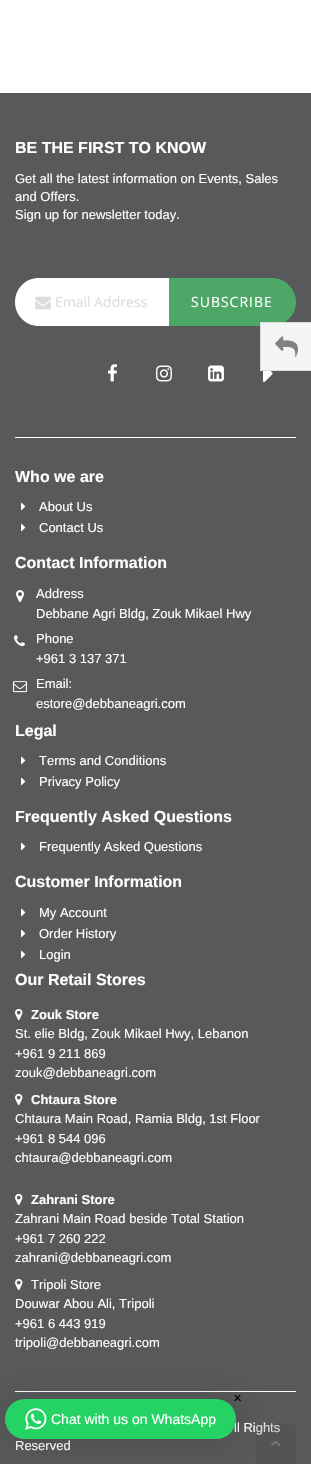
static SkFont makeFont(const char* family, int weight, float size, bool italic = false) {
  SkFontStyle style(weight, SkFontStyle::kNormal_Width,
    italic ? SkFontStyle::kItalic_Slant : SkFontStyle::kUpright_Slant);
  SkFont result(fontMgr->matchFamilyStyle(family, style), size);
  result.setSubpixel(true);
  return result;
}

static void text(SkCanvas* c, const char* s, float x, float y, const SkFont& font, SkColor color) {
  SkPaint ink(SkColor4f::FromColor(color));
  ink.setAntiAlias(true);
  c->drawString(s, x, y, font, ink);
}

static void spacedText(SkCanvas* c, const char* s, float x, float y, const SkFont& font, const SkPaint& ink, float letter, float word) {
  std::vector<SkGlyphID> glyphs(font.countText(s, strlen(s), SkTextEncoding::kUTF8));
  std::vector<float> xs(glyphs.size());
  font.textToGlyphs(s, strlen(s), SkTextEncoding::kUTF8, glyphs);
  font.getXPos(glyphs, xs, x);
  float extra = 0;
  for (size_t i = 0; i < glyphs.size(); i++) {
    xs[i] += extra;
    extra += letter + word * (glyphs[i] == font.unicharToGlyph(' '));
  }
  c->drawTextBlob(SkTextBlob::MakeFromPosHGlyphs(glyphs, xs, y, font), 0, 0, ink);
}

static void box(SkCanvas* c, float l, float t, float r, float b, SkColor color) {
  SkPaint ink(SkColor4f::FromColor(color));
  ink.setAntiAlias(true);
  c->drawRect(SkRect::MakeLTRB(l, t, r, b), ink);
}

static void roundBox(SkCanvas* c, float l, float t, float r, float b, float radius, SkColor color) {
  SkPaint ink(SkColor4f::FromColor(color));
  ink.setAntiAlias(true);
  c->drawRoundRect(SkRect::MakeLTRB(l, t, r, b), radius, radius, ink);
}

static void picture(SkCanvas* c, const char* path, float l, float t, float r, float b) {
  auto image = SkImages::DeferredFromEncodedData(SkData::MakeFromFileName(path));
  c->drawImageRect(image, SkRect::MakeLTRB(l, t, r, b), SkSamplingOptions());
}

void draw(SkCanvas* c) {
  SkPaint paint;
  paint.setAntiAlias(true);
  c->clear(0xffffffff);
  box(c, 0, 93, 311, 1464, 0xff58595b);
  box(c, 15, 437, 296, 438, 0xffffffff);
  SkFont face1 = makeFont("Liberation Sans", 700, 16);
  text(c, "BE THE FIRST TO KNOW", 15, 153, face1, 0xffffffff);
  SkFont face2 = makeFont("Liberation Sans", 400, 13);
  text(c, "Get all the latest information on Events, Sales", 15, 183, face2, 0xffffffff);
  text(c, "and Offers.", 15, 201, face2, 0xffffffff);
  text(c, "Sign up for newsletter today.", 15, 219, face2, 0xffffffff);
  paint.setColor(0xff4da868);
  c->drawPath(SkPathBuilder().moveTo(168.5f, 278.5f).lineTo(272, 278.5f).cubicTo(285, 278.5f, 295.5f, 289, 295.5f, 302).cubicTo(295.5f, 315, 285, 325.5f, 272, 325.5f).lineTo(168.5f, 325.5f).close().detach(), paint);
  paint.setStyle(SkPaint::kStroke_Style);
  paint.setStrokeWidth(1);
  c->drawPath(SkPathBuilder().moveTo(168.5f, 278.5f).lineTo(272, 278.5f).cubicTo(285, 278.5f, 295.5f, 289, 295.5f, 302).cubicTo(295.5f, 315, 285, 325.5f, 272, 325.5f).lineTo(168.5f, 325.5f).close().detach(), paint);
  paint.setStyle(SkPaint::kFill_Style);
  paint.setColor(0xffffffff);
  c->drawPath(SkPathBuilder().moveTo(39, 278).lineTo(169, 278).lineTo(169, 326).lineTo(39, 326).cubicTo(25.5f, 326, 15, 315.5f, 15, 302).cubicTo(15, 288.5f, 25.5f, 278, 39, 278).close().detach(), paint);
  picture(c, "img_01.png", 35, 296, 51, 310);
  SkFont face3 = makeFont("Open Sans", 400, 14);
  text(c, "Email Address", 55, 307, face3, 0xffdddddd);
  spacedText(c, "SUBSCRIBE", 191, 307, face3, paint, 1, 0);
  picture(c, "img_02.png", 108, 364, 117, 382);
  picture(c, "img_03.png", 156, 365, 172, 382);
  picture(c, "img_04.png", 208, 365, 224, 382);
  picture(c, "img_05.png", 263, 371, 273, 382);
  text(c, "Who we are", 15, 482, face1, 0xffffffff);
  picture(c, "img_06.png", 21, 502, 26, 511);
  text(c, "About Us", 39, 511, face2, 0xffffffff);
  picture(c, "img_06.png", 21, 523, 26, 532);
  text(c, "Contact Us", 39, 532, face2, 0xffffffff);
  text(c, "Contact Information", 15, 568, face1, 0xffffffff);
  picture(c, "img_07.png", 16, 590, 24, 602);
  text(c, "Address", 36, 598, face2, 0xffffffff);
  text(c, "Debbane Agri Bldg, Zouk Mikael Hwy", 36, 618, face2, 0xffffffff);
  picture(c, "img_08.png", 14, 635, 25, 647);
  text(c, "Phone", 36, 643, face2, 0xffffffff);
  text(c, "+961 3 137 371", 36, 663, face2, 0xffffffff);
  picture(c, "img_09.png", 13, 681, 27, 693);
  text(c, "Email:", 36, 688, face2, 0xffffffff);
  text(c, "estore@debbaneagri.com", 36, 708, face2, 0xffffffff);
  text(c, "Legal", 15, 736, face1, 0xffffffff);
  picture(c, "img_06.png", 21, 756, 26, 765);
  text(c, "Terms and Conditions", 39, 765, face2, 0xffffffff);
  picture(c, "img_06.png", 21, 777, 26, 786);
  text(c, "Privacy Policy", 39, 786, face2, 0xffffffff);
  text(c, "Frequently Asked Questions", 15, 822, face1, 0xffffffff);
  picture(c, "img_06.png", 21, 842, 26, 851);
  text(c, "Frequently Asked Questions", 39, 851, face2, 0xffffffff);
  text(c, "Customer Information", 15, 887, face1, 0xffffffff);
  picture(c, "img_06.png", 21, 908, 26, 917);
  text(c, "My Account", 39, 917, face2, 0xffffffff);
  picture(c, "img_06.png", 21, 929, 26, 938);
  text(c, "Order History", 39, 938, face2, 0xffffffff);
  picture(c, "img_06.png", 21, 950, 26, 959);
  text(c, "Login", 39, 959, face2, 0xffffffff);
  text(c, "Our Retail Stores", 15, 985, face1, 0xffffffff);
  picture(c, "img_10.png", 15, 1008, 23, 1020);
  SkFont face4 = makeFont("Liberation Sans", 700, 13);
  text(c, "Zouk Store", 31, 1019, face4, 0xffffffff);
  text(c, "St. elie Bldg, Zouk Mikael Hwy, Lebanon", 15, 1038, face2, 0xffffffff);
  text(c, "+961 9 211 869", 15, 1058, face2, 0xffffffff);
  text(c, "zouk@debbaneagri.com", 15, 1077, face2, 0xffffffff);
  picture(c, "img_10.png", 15, 1093, 23, 1105);
  text(c, "Chtaura Store", 31, 1104, face4, 0xffffffff);
  text(c, "Chtaura Main Road, Ramia Bldg, 1st Floor", 15, 1123, face2, 0xffffffff);
  text(c, "+961 8 544 096", 15, 1143, face2, 0xffffffff);
  text(c, "chtaura@debbaneagri.com", 15, 1162, face2, 0xffffffff);
  picture(c, "img_10.png", 15, 1193, 23, 1205);
  text(c, "Zahrani Store", 31, 1204, face4, 0xffffffff);
  text(c, "Zahrani Main Road beside Total Station", 15, 1223, face2, 0xffffffff);
  text(c, "+961 7 260 222", 15, 1243, face2, 0xffffffff);
  text(c, "zahrani@debbaneagri.com", 15, 1262, face2, 0xffffffff);
  picture(c, "img_10.png", 15, 1278, 23, 1290);
  text(c, "Tripoli Store", 31, 1289, face2, 0xffffffff);
  text(c, "Douwar Abou Ali, Tripoli", 15, 1308, face2, 0xffffffff);
  text(c, "+961 6 443 919", 15, 1328, face2, 0xffffffff);
  text(c, "tripoli@debbaneagri.com", 15, 1347, face2, 0xffffffff);
  box(c, 15, 1391, 296, 1392, 0xffffffff);
  text(c, "ll Rights", 234, 1432, face2, 0xffffffff);
  text(c, "Reserved", 15, 1450, face2, 0xffffffff);
  paint.setColor(0x33404040);
  c->drawPath(SkPathBuilder().moveTo(261, 1424).lineTo(291, 1424).cubicTo(294, 1424, 296, 1426, 296, 1429).lineTo(296, 1464).lineTo(256, 1464).lineTo(256, 1429).cubicTo(256, 1426, 258, 1424, 261, 1424).close().detach(), paint);
  picture(c, "img_11.png", 271, 1440, 281, 1446);
  box(c, 261, 323, 311, 370, 0xfff5f5f5);
  box(c, 260, 322, 311, 323, 0xffdcdcda);
  box(c, 260, 370, 311, 371, 0xffdcdcda);
  box(c, 260, 322, 261, 371, 0xffdcdcda);
  picture(c, "img_12.png", 275, 336, 298, 357);
  paint.setColor(0x29000000);
  paint.setMaskFilter(SkMaskFilter::MakeBlur(kNormal_SkBlurStyle, 16));
  c->drawRoundRect(SkRect::MakeLTRB(5, 1401, 236, 1441), 20, 20, paint);
  paint.setMaskFilter(nullptr);
  roundBox(c, 5, 1399, 236, 1439, 20, 0xff25d365);
  picture(c, "img_13.png", 234, 1395, 241, 1401);
  picture(c, "img_14.png", 25, 1408, 47, 1430);
  SkFont face5 = makeFont("Liberation Sans", 400, 14);
  text(c, "Chat with us on WhatsApp", 51, 1424, face5, 0xffffffff);
}
